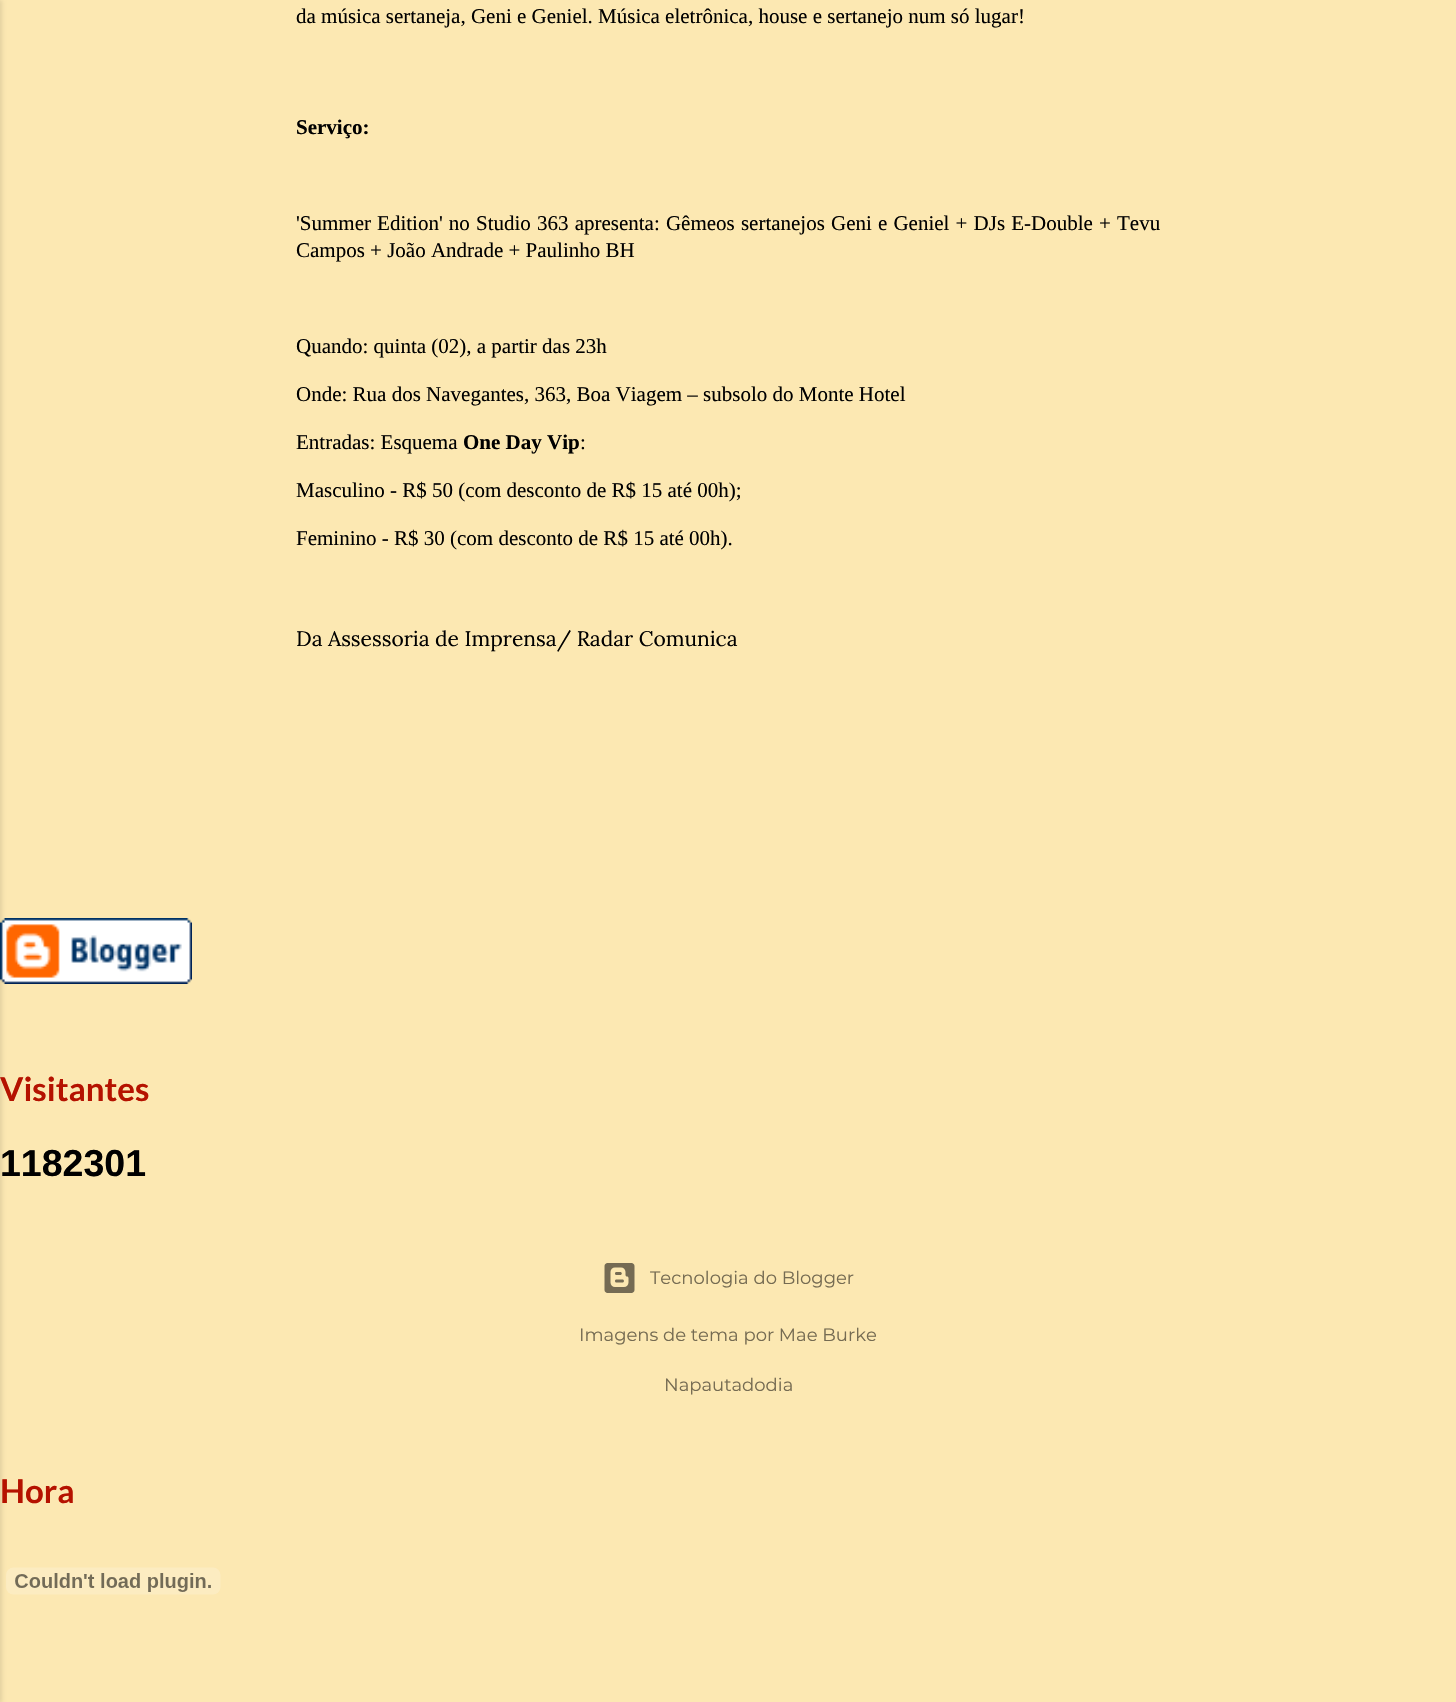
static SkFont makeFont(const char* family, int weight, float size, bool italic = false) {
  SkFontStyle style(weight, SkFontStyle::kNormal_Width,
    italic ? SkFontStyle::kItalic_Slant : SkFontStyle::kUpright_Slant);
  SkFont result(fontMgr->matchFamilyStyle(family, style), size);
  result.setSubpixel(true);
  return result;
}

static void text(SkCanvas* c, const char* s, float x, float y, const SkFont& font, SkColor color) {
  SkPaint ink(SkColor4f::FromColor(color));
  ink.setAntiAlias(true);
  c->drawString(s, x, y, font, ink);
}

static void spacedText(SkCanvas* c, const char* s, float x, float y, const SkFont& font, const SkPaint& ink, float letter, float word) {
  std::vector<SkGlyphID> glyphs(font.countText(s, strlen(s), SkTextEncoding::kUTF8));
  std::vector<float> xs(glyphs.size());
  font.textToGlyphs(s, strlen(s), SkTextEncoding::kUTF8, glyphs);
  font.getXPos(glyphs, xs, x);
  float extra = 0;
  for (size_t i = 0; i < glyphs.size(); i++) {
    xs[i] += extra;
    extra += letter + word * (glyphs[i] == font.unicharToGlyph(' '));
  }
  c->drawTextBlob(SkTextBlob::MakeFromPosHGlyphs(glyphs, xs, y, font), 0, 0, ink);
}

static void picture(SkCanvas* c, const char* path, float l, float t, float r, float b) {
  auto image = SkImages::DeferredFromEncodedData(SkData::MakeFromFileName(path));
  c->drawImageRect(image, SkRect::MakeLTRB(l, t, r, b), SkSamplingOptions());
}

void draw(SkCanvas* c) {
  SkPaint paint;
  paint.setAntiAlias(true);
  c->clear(0xfffce8b2);
  picture(c, "img_01.png", 0, 918, 192, 984);
  picture(c, "img_03.png", 6, 1567, 221, 1595);
  paint.setColor(0x1a000000);
  paint.setMaskFilter(SkMaskFilter::MakeBlur(kNormal_SkBlurStyle, 2));
  c->drawRect(SkRect::MakeLTRB(-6, 0, 2, 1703), paint);
  paint.setMaskFilter(nullptr);
  SkFont face1 = makeFont("Liberation Serif", 400, 21);
  text(c, "da música sertaneja, Geni e Geniel. Música eletrônica, house e sertanejo num só lugar!", 296, 23, face1, 0xff000000);
  SkFont face2 = makeFont("Liberation Serif", 700, 21);
  text(c, "Serviço:", 296, 134, face2, 0xff000000);
  paint.setColor(0xff000000);
  spacedText(c, "'Summer Edition' no Studio 363 apresenta: Gêmeos sertanejos Geni e Geniel + DJs E-Double + Tevu", 296, 230, face1, paint, 0, 0.9f);
  text(c, "Campos + João Andrade + Paulinho BH", 296, 257, face1, 0xff000000);
  text(c, "Quando: quinta (02), a partir das 23h", 296, 353, face1, 0xff000000);
  text(c, "Onde: Rua dos Navegantes, 363, Boa Viagem – subsolo do Monte Hotel", 296, 401, face1, 0xff000000);
  text(c, "Entradas: Esquema", 296, 449, face1, 0xff000000);
  text(c, "One Day Vip", 463, 449, face2, 0xff000000);
  text(c, ":", 580, 449, face1, 0xff000000);
  text(c, "Masculino - R$ 50 (com desconto de R$ 15 até 00h);", 296, 497, face1, 0xff000000);
  text(c, "Feminino - R$ 30 (com desconto de R$ 15 até 00h).", 296, 545, face1, 0xff000000);
  SkFont face3 = makeFont("Lora", 400, 21);
  text(c, "Da Assessoria de Imprensa/ Radar Comunica", 296, 646, face3, 0xff000000);
  SkFont face4 = makeFont("Lato", 700, 33);
  text(c, "Visitantes", 0, 1101, face4, 0xffb51200);
  SkFont face5 = makeFont("Liberation Sans", 700, 37.5f);
  text(c, "1182301", 0, 1176, face5, 0xff000000);
  picture(c, "img_02.png", 604, 1263, 635, 1293);
  SkFont face6 = makeFont("Montserrat", 400, 18);
  text(c, "Tecnologia do Blogger", 650, 1284, face6, 0xff756b52);
  text(c, "Imagens de tema por Mae Burke", 579, 1341, face6, 0xff756b52);
  text(c, "Napautadodia", 664, 1391, face6, 0xff756b52);
  text(c, "Hora", 0, 1503, face4, 0xffb51200);
}
